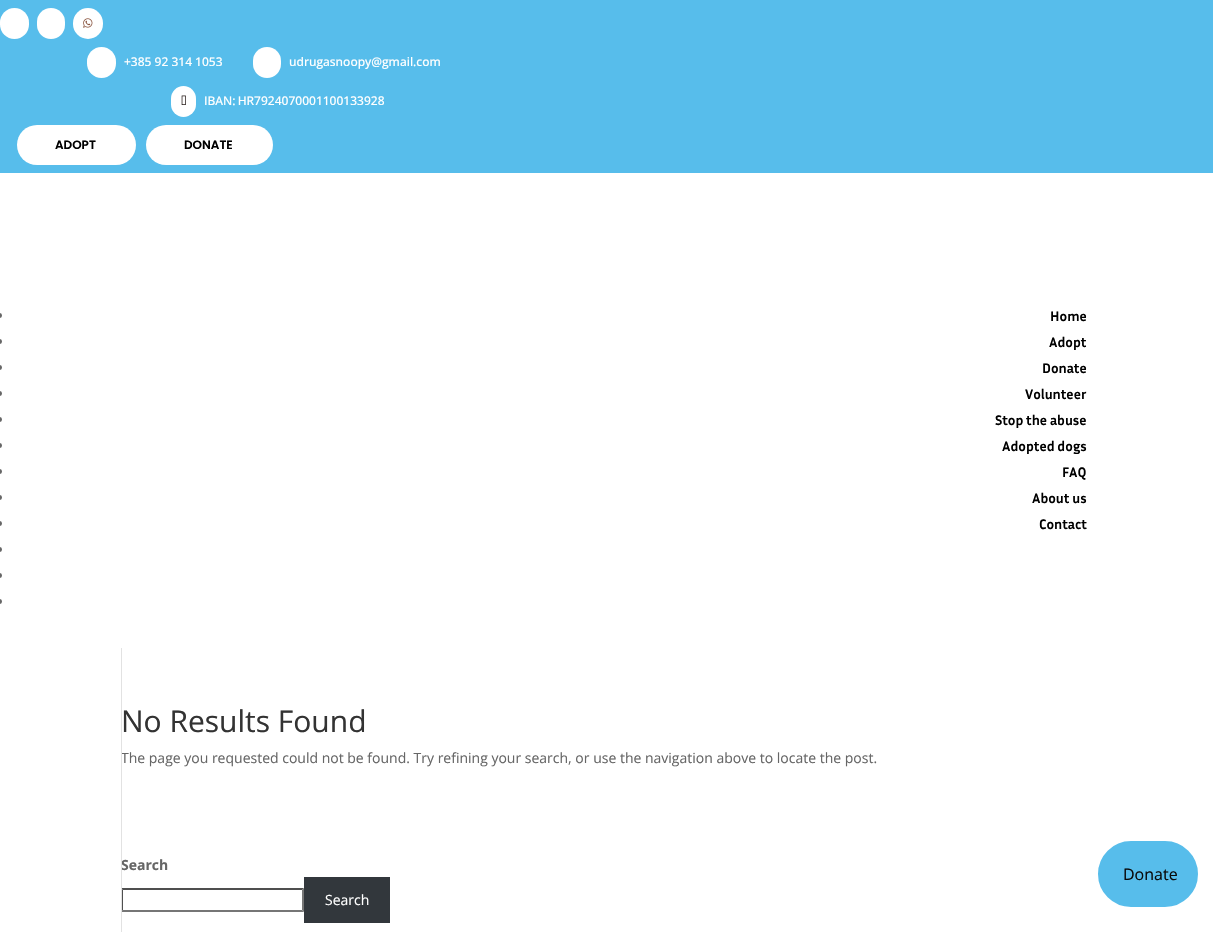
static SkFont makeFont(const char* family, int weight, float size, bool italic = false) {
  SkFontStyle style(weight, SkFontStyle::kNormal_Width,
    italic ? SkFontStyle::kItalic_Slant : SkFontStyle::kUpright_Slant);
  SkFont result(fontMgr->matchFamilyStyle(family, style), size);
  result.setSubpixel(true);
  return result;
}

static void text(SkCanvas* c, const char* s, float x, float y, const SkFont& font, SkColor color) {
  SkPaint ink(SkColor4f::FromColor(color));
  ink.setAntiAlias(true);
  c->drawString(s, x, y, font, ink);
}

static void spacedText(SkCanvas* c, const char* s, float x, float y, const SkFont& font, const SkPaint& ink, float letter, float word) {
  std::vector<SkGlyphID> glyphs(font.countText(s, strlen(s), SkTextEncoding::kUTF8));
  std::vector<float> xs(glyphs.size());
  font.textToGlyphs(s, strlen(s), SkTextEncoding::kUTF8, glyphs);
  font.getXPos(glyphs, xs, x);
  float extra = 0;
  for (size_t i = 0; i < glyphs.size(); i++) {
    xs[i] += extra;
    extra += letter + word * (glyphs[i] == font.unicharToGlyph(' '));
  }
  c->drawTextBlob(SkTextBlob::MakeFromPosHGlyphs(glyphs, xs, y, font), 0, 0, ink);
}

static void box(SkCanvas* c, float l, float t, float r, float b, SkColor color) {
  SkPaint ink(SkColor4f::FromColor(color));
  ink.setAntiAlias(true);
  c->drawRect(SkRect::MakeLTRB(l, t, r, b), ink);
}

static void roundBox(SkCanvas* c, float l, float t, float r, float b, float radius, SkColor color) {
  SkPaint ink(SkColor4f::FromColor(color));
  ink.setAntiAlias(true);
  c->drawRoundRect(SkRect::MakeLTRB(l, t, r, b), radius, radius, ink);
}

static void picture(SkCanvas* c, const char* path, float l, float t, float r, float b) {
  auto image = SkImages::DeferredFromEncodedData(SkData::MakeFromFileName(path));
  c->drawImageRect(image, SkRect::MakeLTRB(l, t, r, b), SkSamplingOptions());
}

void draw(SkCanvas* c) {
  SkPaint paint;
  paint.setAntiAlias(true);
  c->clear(0xffffffff);
  box(c, 0, 0, 1213, 173, 0xff57bdeb);
  roundBox(c, 0, 8, 29, 39, 14.5f, 0xffffffff);
  roundBox(c, 37, 8, 65, 39, 14, 0xffffffff);
  roundBox(c, 73, 8, 103, 39, 15, 0xffffffff);
  picture(c, "img_01.png", 83, 18, 93, 28);
  roundBox(c, 87, 47, 116, 78, 14.5f, 0xffffffff);
  SkFont face1 = makeFont("Open Sans", 500, 12);
  text(c, "+385 92 314 1053", 124, 66, face1, 0xffffffff);
  roundBox(c, 253, 47, 281, 78, 14, 0xffffffff);
  text(c, "udrugasnoopy@gmail.com", 289, 66, face1, 0xffffffff);
  roundBox(c, 171, 86, 196, 117, 12.5f, 0xffffffff);
  picture(c, "img_02.png", 181, 95, 186, 105);
  paint.setColor(0xffffffff);
  spacedText(c, "IBAN: HR7924070001100133928", 204, 105, face1, paint, 0, -1);
  roundBox(c, 17, 125, 136, 165, 20, 0xffffffff);
  SkFont face2 = makeFont("Poppins", 600, 12);
  text(c, "ADOPT", 55, 149, face2, 0xff000000);
  roundBox(c, 146, 125, 273, 165, 20, 0xffffffff);
  text(c, "DONATE", 184, 149, face2, 0xff000000);
  paint.setColor(0xff666666);
  c->drawCircle(-0.5f, 315.5f, 2.5f, paint);
  SkFont face3 = makeFont("Inria Sans", 700, 14);
  text(c, "Home", 1050, 321, face3, 0xff000000);
  c->drawCircle(-0.5f, 341.5f, 2.5f, paint);
  text(c, "Adopt", 1049, 347, face3, 0xff000000);
  c->drawCircle(-0.5f, 367.5f, 2.5f, paint);
  text(c, "Donate", 1042, 373, face3, 0xff000000);
  c->drawCircle(-0.5f, 393.5f, 2.5f, paint);
  text(c, "Volunteer", 1025, 399, face3, 0xff000000);
  c->drawCircle(-0.5f, 419.5f, 2.5f, paint);
  text(c, "Stop the abuse", 995, 425, face3, 0xff000000);
  c->drawCircle(-0.5f, 445.5f, 2.5f, paint);
  text(c, "Adopted dogs", 1002, 451, face3, 0xff000000);
  c->drawCircle(-0.5f, 471.5f, 2.5f, paint);
  text(c, "FAQ", 1062, 477, face3, 0xff000000);
  c->drawCircle(-0.5f, 497.5f, 2.5f, paint);
  text(c, "About us", 1032, 503, face3, 0xff000000);
  c->drawCircle(-0.5f, 523.5f, 2.5f, paint);
  text(c, "Contact", 1039, 529, face3, 0xff000000);
  c->drawCircle(-0.5f, 549.5f, 2.5f, paint);
  c->drawCircle(-0.5f, 575.5f, 2.5f, paint);
  c->drawCircle(-0.5f, 601.5f, 2.5f, paint);
  SkFont face4 = makeFont("Open Sans", 400, 14);
  text(c, "The page you requested could not be found. Try refining your search, or use the navigation above to locate the post.", 121, 763, face4, 0xff666666);
  SkFont face5 = makeFont("Open Sans", 700, 14);
  text(c, "Search", 121, 870, face5, 0xff666666);
  paint.setColor(0xff4f4f4f);
  c->drawPath(SkPathBuilder().moveTo(121, 888).lineTo(304, 888).lineTo(302, 890).lineTo(123, 890).close().detach(), paint);
  paint.setColor(0xff767676);
  c->drawPath(SkPathBuilder().moveTo(304, 888).lineTo(304, 912).lineTo(302, 910).lineTo(302, 890).close().detach(), paint);
  c->drawPath(SkPathBuilder().moveTo(304, 912).lineTo(121, 912).lineTo(123, 910).lineTo(302, 910).close().detach(), paint);
  paint.setColor(0xff4f4f4f);
  c->drawPath(SkPathBuilder().moveTo(121, 912).lineTo(121, 888).lineTo(123, 890).lineTo(123, 910).close().detach(), paint);
  box(c, 121, 648, 122, 932, 0xffe2e2e2);
  SkFont face6 = makeFont("Open Sans", 400, 30);
  text(c, "No Results Found", 121, 732, face6, 0xff333333);
  box(c, 304, 877, 390, 923, 0xff32373c);
  text(c, "Search", 325, 905, face4, 0xffffffff);
  paint.setColor(0xff57bdeb);
  c->drawRoundRect(SkRect::MakeLTRB(1095.5f, 838.5f, 1200.5f, 909.5f), 35.5f, 35.5f, paint);
  paint.setStyle(SkPaint::kStroke_Style);
  paint.setStrokeWidth(5);
  paint.setColor(0xffffffff);
  c->drawRoundRect(SkRect::MakeLTRB(1095.5f, 838.5f, 1200.5f, 909.5f), 35.5f, 35.5f, paint);
  SkFont face7 = makeFont("Open Sans", 400, 16);
  text(c, "Donate", 1123, 880, face7, 0xff0a0a0a);
}
